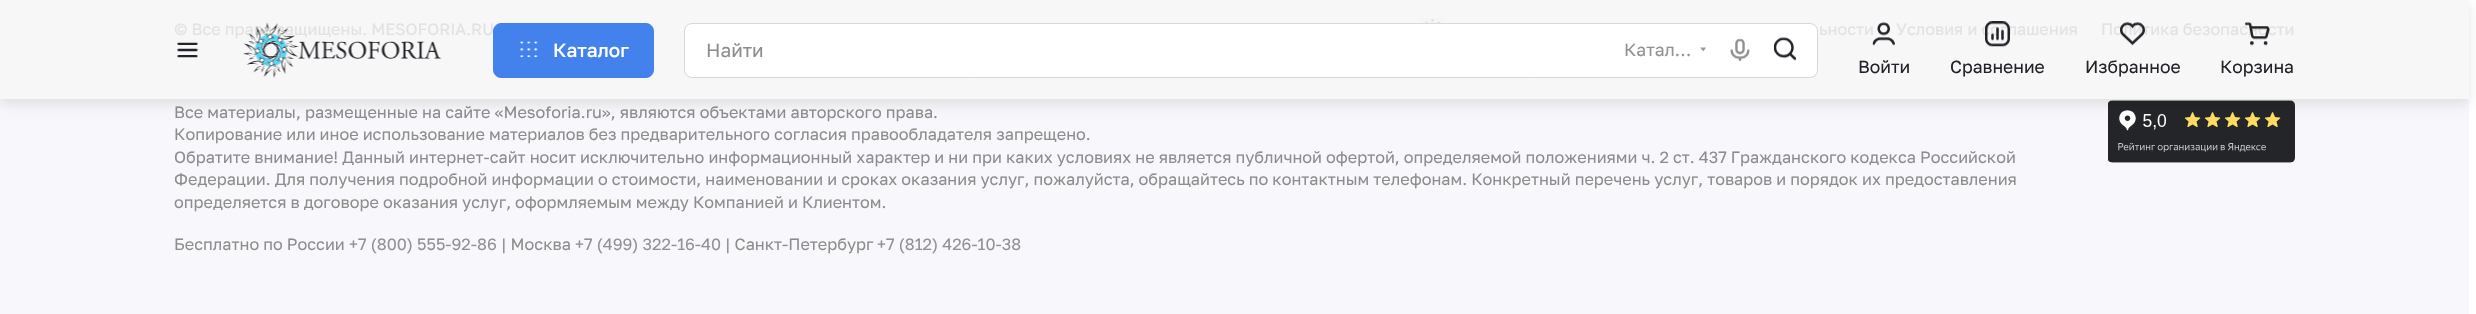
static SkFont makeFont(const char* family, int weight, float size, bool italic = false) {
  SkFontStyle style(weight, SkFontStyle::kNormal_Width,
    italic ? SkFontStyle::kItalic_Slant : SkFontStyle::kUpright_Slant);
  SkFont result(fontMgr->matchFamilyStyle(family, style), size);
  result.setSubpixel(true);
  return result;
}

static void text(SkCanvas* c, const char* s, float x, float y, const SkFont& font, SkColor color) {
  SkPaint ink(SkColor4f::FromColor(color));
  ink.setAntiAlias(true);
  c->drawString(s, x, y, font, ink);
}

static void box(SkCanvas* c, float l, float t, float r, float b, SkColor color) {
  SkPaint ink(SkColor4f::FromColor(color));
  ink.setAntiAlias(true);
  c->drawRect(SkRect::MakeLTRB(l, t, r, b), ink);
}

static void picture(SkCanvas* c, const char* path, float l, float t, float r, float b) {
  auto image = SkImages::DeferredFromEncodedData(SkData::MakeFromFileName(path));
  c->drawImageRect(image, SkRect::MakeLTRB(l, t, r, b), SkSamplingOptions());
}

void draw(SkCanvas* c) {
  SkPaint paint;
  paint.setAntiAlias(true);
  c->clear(0xffffffff);
  box(c, 0, 99, 2469, 314, 0xfff8f8fc);
  box(c, 0, 0, 2469, 99, 0xfff7f7f8);
  SkFont face1 = makeFont("Golos Text", 400, 16.25f);
  text(c, "© Все права защищены. MESOFORIA.RU", 174, 35, face1, 0xffe2e2e2);
  picture(c, "img_01.png", 1420, 18, 1444, 23);
  text(c, "ьности", 1819, 35, face1, 0xffe2e2e2);
  text(c, "Условия и соглашения", 1896, 35, face1, 0xffe2e2e2);
  text(c, "Политика безопасности", 2101, 35, face1, 0xffe2e2e2);
  text(c, "Все материалы, размещенные на сайте «Mesoforia.ru», являются объектами авторского права.", 174, 118, face1, 0xff8d8d8d);
  text(c, "Копирование или иное использование материалов без предварительного согласия правообладателя запрещено.", 174, 140, face1, 0xff8d8d8d);
  text(c, "Обратите внимание! Данный интернет-сайт носит исключительно информационный характер и ни при каких условиях не является публичной офертой, определяемой положениями ч. 2 ст. 437 Гражданского кодекса Российской", 174, 163, face1, 0xff8d8d8d);
  text(c, "Федерации. Для получения подробной информации о стоимости, наименовании и сроках оказания услуг, пожалуйста, обращайтесь по контактным телефонам. Конкретный перечень услуг, товаров и порядок их предоставления", 174, 185, face1, 0xff8d8d8d);
  text(c, "определяется в договоре оказания услуг, оформляемым между Компанией и Клиентом.", 174, 208, face1, 0xff8d8d8d);
  picture(c, "img_02.png", 2108, 100, 2295, 163);
  text(c, "Бесплатно по России", 174, 250, face1, 0xff8d8d8d);
  text(c, "+7 (800) 555-92-86", 349, 250, face1, 0xff919196);
  text(c, "| Москва", 501, 250, face1, 0xff8d8d8d);
  text(c, "+7 (499) 322-16-40", 575, 250, face1, 0xff919196);
  text(c, "| Санкт-Петербург", 725, 250, face1, 0xff8d8d8d);
  text(c, "+7 (812) 426-10-38", 877, 250, face1, 0xff919196);
  c->save();
  c->clipPath(SkPathBuilder(SkPathFillType::kEvenOdd).moveTo(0, 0).lineTo(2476, 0).lineTo(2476, 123).lineTo(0, 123).close().moveTo(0, 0).lineTo(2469, 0).lineTo(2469, 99).lineTo(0, 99).close().detach(), true);
  paint.setColor(0x1a000000);
  paint.setMaskFilter(SkMaskFilter::MakeBlur(kNormal_SkBlurStyle, 6));
  c->drawRect(SkRect::MakeLTRB(0, 5, 2469, 104), paint);
  paint.setMaskFilter(nullptr);
  c->restore();
  picture(c, "img_03.png", 177, 42, 198, 58);
  picture(c, "img_04.png", 243, 22, 442, 78);
  paint.setColor(0xff4382ec);
  c->drawRoundRect(SkRect::MakeLTRB(493.5f, 23.5f, 653.5f, 77.5f), 7.5f, 7.5f, paint);
  paint.setStyle(SkPaint::kStroke_Style);
  paint.setStrokeWidth(1);
  c->drawRoundRect(SkRect::MakeLTRB(493.5f, 23.5f, 653.5f, 77.5f), 7.5f, 7.5f, paint);
  picture(c, "img_05.png", 520, 41, 538, 58);
  SkFont face2 = makeFont("Golos Text", 500, 19);
  text(c, "Каталог", 553, 57, face2, 0xffffffff);
  paint.setStyle(SkPaint::kFill_Style);
  paint.setColor(0xffffffff);
  c->drawRoundRect(SkRect::MakeLTRB(684.5f, 23.5f, 1817.5f, 77.5f), 7.5f, 7.5f, paint);
  paint.setStyle(SkPaint::kStroke_Style);
  paint.setColor(0xffd7d8da);
  c->drawRoundRect(SkRect::MakeLTRB(684.5f, 23.5f, 1817.5f, 77.5f), 7.5f, 7.5f, paint);
  SkFont face3 = makeFont("Golos Text", 400, 19);
  text(c, "Найти", 706, 57, face3, 0xff8d8d8d);
  SkFont face4 = makeFont("Golos Text", 400, 17.5f);
  text(c, "Катал…", 1624, 56, face4, 0xff919196);
  picture(c, "img_06.png", 1700, 47, 1706, 52);
  picture(c, "img_07.png", 1730, 38, 1750, 61);
  picture(c, "img_08.png", 1773, 37, 1797, 61);
  picture(c, "img_09.png", 1872, 22, 1895, 46);
  text(c, "Войти", 1858, 73, face4, 0xff222228);
  picture(c, "img_10.png", 1985, 21, 2010, 47);
  text(c, "Сравнение", 1950, 73, face4, 0xff222228);
  picture(c, "img_11.png", 2120, 22, 2145, 46);
  text(c, "Избранное", 2085, 73, face4, 0xff222228);
  picture(c, "img_12.png", 2245, 22, 2270, 46);
  text(c, "Корзина", 2220, 73, face4, 0xff222228);
}
